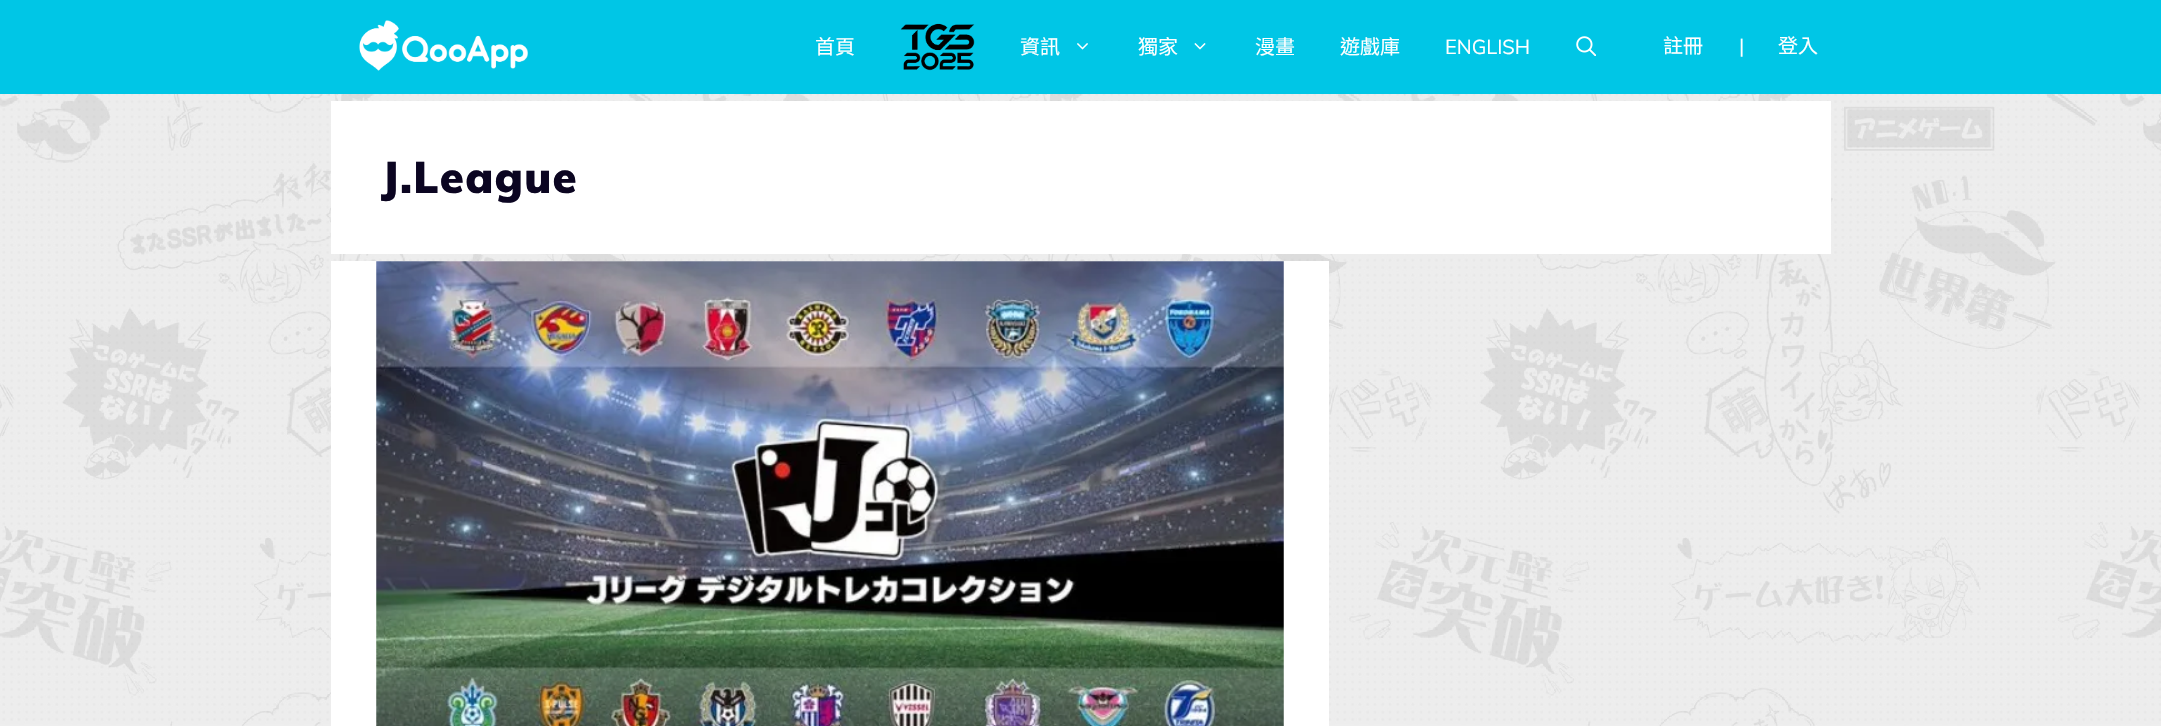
static SkFont makeFont(const char* family, int weight, float size, bool italic = false) {
  SkFontStyle style(weight, SkFontStyle::kNormal_Width,
    italic ? SkFontStyle::kItalic_Slant : SkFontStyle::kUpright_Slant);
  SkFont result(fontMgr->matchFamilyStyle(family, style), size);
  result.setSubpixel(true);
  return result;
}

static void text(SkCanvas* c, const char* s, float x, float y, const SkFont& font, SkColor color) {
  SkPaint ink(SkColor4f::FromColor(color));
  ink.setAntiAlias(true);
  c->drawString(s, x, y, font, ink);
}

static void spacedText(SkCanvas* c, const char* s, float x, float y, const SkFont& font, const SkPaint& ink, float letter, float word) {
  std::vector<SkGlyphID> glyphs(font.countText(s, strlen(s), SkTextEncoding::kUTF8));
  std::vector<float> xs(glyphs.size());
  font.textToGlyphs(s, strlen(s), SkTextEncoding::kUTF8, glyphs);
  font.getXPos(glyphs, xs, x);
  float extra = 0;
  for (size_t i = 0; i < glyphs.size(); i++) {
    xs[i] += extra;
    extra += letter + word * (glyphs[i] == font.unicharToGlyph(' '));
  }
  c->drawTextBlob(SkTextBlob::MakeFromPosHGlyphs(glyphs, xs, y, font), 0, 0, ink);
}

static void box(SkCanvas* c, float l, float t, float r, float b, SkColor color) {
  SkPaint ink(SkColor4f::FromColor(color));
  ink.setAntiAlias(true);
  c->drawRect(SkRect::MakeLTRB(l, t, r, b), ink);
}

static void picture(SkCanvas* c, const char* path, float l, float t, float r, float b) {
  auto image = SkImages::DeferredFromEncodedData(SkData::MakeFromFileName(path));
  c->drawImageRect(image, SkRect::MakeLTRB(l, t, r, b), SkSamplingOptions());
}

void draw(SkCanvas* c) {
  SkPaint paint;
  paint.setAntiAlias(true);
  c->clear(0xffffffff);
  picture(c, "img_01.png", 0, 94, 2161, 726);
  box(c, 0, 0, 2161, 94, 0xff00c6e6);
  picture(c, "img_02.png", 359, 20, 528, 71);
  SkFont face1 = makeFont("Noto Sans CJK TC", 400, 20);
  text(c, "首頁", 815, 54, face1, 0xffffffff);
  picture(c, "img_03.png", 900, 23, 975, 71);
  text(c, "資訊", 1020, 54, face1, 0xffffffff);
  picture(c, "img_04.png", 1077, 43, 1088, 50);
  text(c, "獨家", 1138, 54, face1, 0xffffffff);
  picture(c, "img_05.png", 1194, 43, 1206, 50);
  text(c, "漫畫", 1255, 54, face1, 0xffffffff);
  text(c, "遊戲庫", 1340, 54, face1, 0xffffffff);
  SkFont face2 = makeFont("Muli", 400, 20);
  text(c, "ENGLISH", 1445, 54, face2, 0xffffffff);
  picture(c, "img_06.png", 1576, 36, 1596, 56);
  text(c, "註冊", 1663, 53, face1, 0xffffffff);
  text(c, "|", 1739, 53, face2, 0xffffffff);
  text(c, "登入", 1778, 53, face1, 0xffffffff);
  box(c, 331, 101, 1831, 254, 0xffffffff);
  SkFont face3 = makeFont("Muli", 900, 43.75f);
  paint.setColor(0xff0b0521);
  spacedText(c, "J.League", 381, 193, face3, paint, 1.25f, 0);
  box(c, 331, 261, 1329, 726, 0xffffffff);
  picture(c, "img_07.png", 376, 261, 1284, 726);
}
